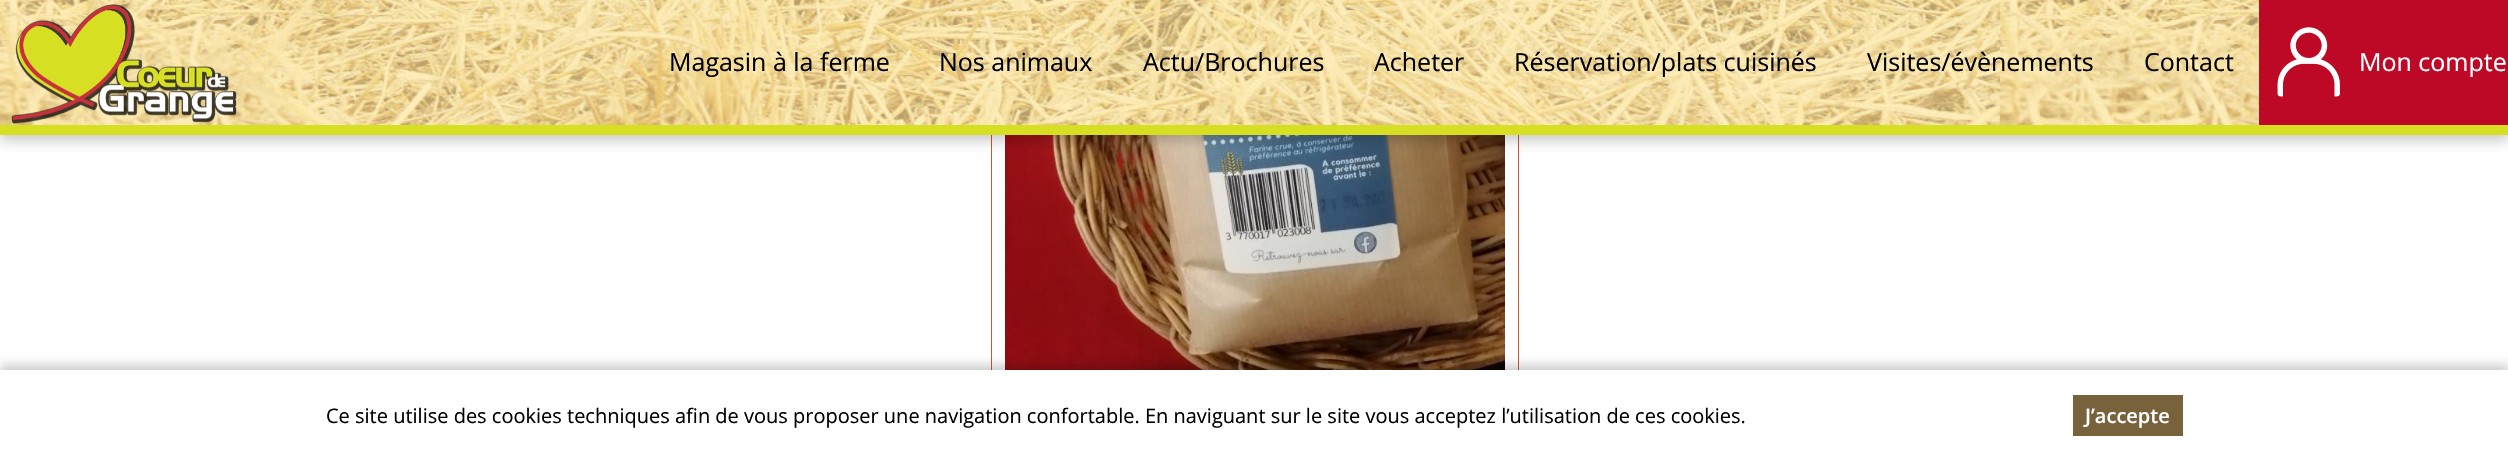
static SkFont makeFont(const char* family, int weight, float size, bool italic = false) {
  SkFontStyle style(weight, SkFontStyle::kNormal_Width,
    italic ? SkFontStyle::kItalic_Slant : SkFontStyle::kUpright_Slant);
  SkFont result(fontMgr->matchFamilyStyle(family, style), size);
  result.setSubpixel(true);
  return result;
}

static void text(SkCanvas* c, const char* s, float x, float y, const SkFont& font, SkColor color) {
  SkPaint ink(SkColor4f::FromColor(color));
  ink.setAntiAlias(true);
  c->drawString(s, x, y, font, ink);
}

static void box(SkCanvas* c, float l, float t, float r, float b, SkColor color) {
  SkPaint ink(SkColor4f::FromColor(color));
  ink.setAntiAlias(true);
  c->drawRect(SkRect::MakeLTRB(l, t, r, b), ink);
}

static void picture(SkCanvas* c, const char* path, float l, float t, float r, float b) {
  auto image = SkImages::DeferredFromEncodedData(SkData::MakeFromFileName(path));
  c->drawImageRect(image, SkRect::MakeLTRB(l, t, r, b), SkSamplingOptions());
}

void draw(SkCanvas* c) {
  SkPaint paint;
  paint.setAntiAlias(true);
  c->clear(0xffffffff);
  paint.setStyle(SkPaint::kStroke_Style);
  paint.setStrokeWidth(1);
  paint.setColor(0xffcc5b29);
  c->drawRect(SkRect::MakeLTRB(991.5f, -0.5f, 1518.5f, 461.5f), paint);
  picture(c, "img_01.png", 1005, 135, 1505, 370);
  paint.setStyle(SkPaint::kFill_Style);
  paint.setColor(0x33000000);
  paint.setMaskFilter(SkMaskFilter::MakeBlur(kNormal_SkBlurStyle, 6));
  c->drawRect(SkRect::MakeLTRB(0, 6, 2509, 141), paint);
  paint.setMaskFilter(nullptr);
  picture(c, "img_02.png", 0, 0, 2259, 125);
  box(c, 0, 125, 2508, 135, 0xffd7df22);
  picture(c, "img_03.png", 11, 4, 237, 124);
  SkFont face1 = makeFont("Open Sans", 400, 25);
  text(c, "Magasin à la ferme", 669, 71, face1, 0xff000000);
  text(c, "Nos animaux", 939, 71, face1, 0xff000000);
  text(c, "Actu/Brochures", 1143, 71, face1, 0xff000000);
  text(c, "Acheter", 1374, 71, face1, 0xff000000);
  text(c, "Réservation/plats cuisinés", 1514, 71, face1, 0xff000000);
  text(c, "Visites/évènements", 1867, 71, face1, 0xff000000);
  text(c, "Contact", 2144, 71, face1, 0xff000000);
  box(c, 2259, 0, 2508, 125, 0xffbd0926);
  picture(c, "img_04.png", 2277, 27, 2340, 97);
  text(c, "Mon compte", 2359, 71, face1, 0xffffffff);
  paint.setMaskFilter(SkMaskFilter::MakeBlur(kNormal_SkBlurStyle, 5));
  c->drawRect(SkRect::MakeLTRB(0, 365, 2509, 456), paint);
  paint.setMaskFilter(nullptr);
  box(c, 0, 370, 2508, 461, 0xffffffff);
  SkFont face2 = makeFont("Open Sans", 400, 20);
  text(c, "Ce site utilise des cookies techniques afin de vous proposer une navigation confortable. En naviguant sur le site vous acceptez l’utilisation de ces cookies.", 326, 423, face2, 0xff000000);
  box(c, 2073, 395, 2183, 436, 0xff78623b);
  SkFont face3 = makeFont("Open Sans", 600, 20);
  text(c, "J’accepte", 2085, 423, face3, 0xffffffff);
}
